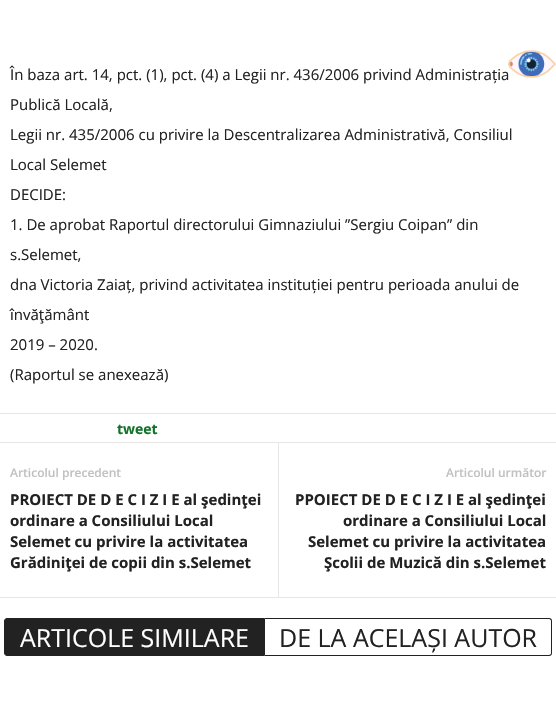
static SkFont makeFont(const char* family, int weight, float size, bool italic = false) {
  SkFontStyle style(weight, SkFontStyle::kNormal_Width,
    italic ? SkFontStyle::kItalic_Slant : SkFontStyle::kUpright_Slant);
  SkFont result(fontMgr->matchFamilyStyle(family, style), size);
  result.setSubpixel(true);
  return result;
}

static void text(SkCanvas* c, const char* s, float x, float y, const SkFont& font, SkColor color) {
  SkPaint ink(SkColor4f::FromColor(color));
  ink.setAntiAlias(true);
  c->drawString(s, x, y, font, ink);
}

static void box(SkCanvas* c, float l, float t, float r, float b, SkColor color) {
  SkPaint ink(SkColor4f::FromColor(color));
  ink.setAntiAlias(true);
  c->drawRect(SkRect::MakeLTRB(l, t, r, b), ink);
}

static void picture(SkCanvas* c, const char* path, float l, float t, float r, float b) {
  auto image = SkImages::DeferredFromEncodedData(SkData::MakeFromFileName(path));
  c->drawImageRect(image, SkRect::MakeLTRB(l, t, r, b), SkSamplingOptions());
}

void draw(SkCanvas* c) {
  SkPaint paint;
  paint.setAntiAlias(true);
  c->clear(0xffffffff);
  SkFont face1 = makeFont("Open Sans", 400, 15);
  text(c, "În baza art. 14, pct. (1), pct. (4) a Legii nr. 436/2006 privind Administrația", 10, 80, face1, 0xff222222);
  picture(c, "img_01.png", 508, 50, 556, 79);
  text(c, "Publică Locală,", 10, 110, face1, 0xff222222);
  text(c, "Legii nr. 435/2006 cu privire la Descentralizarea Administrativă, Consiliul", 10, 140, face1, 0xff222222);
  text(c, "Local Selemet", 10, 170, face1, 0xff222222);
  text(c, "DECIDE:", 10, 200, face1, 0xff222222);
  text(c, "1. De aprobat Raportul directorului Gimnaziului ”Sergiu Coipan” din", 10, 230, face1, 0xff222222);
  text(c, "s.Selemet,", 10, 260, face1, 0xff222222);
  text(c, "dna Victoria Zaiaț, privind activitatea instituției pentru perioada anului de", 10, 290, face1, 0xff222222);
  text(c, "învăţământ", 10, 320, face1, 0xff222222);
  text(c, "2019 – 2020.", 10, 350, face1, 0xff222222);
  text(c, "(Raportul se anexează)", 10, 380, face1, 0xff222222);
  box(c, 0, 413, 556, 414, 0xffe6e6e6);
  SkFont face2 = makeFont("Open Sans", 700, 14);
  text(c, "tweet", 117, 434, face2, 0xff127329);
  box(c, 0, 442, 556, 443, 0xffe6e6e6);
  SkFont face3 = makeFont("Open Sans", 600, 12);
  text(c, "Articolul precedent", 10, 477, face3, 0xffc1c1c1);
  SkFont face4 = makeFont("Open Sans", 700, 15);
  text(c, "PROIECT DE D E C I Z I E al şedinţei", 10, 505, face4, 0xff222222);
  text(c, "ordinare a Consiliului Local", 10, 526, face4, 0xff222222);
  text(c, "Selemet cu privire la activitatea", 10, 547, face4, 0xff222222);
  text(c, "Grădiniţei de copii din s.Selemet", 10, 568, face4, 0xff222222);
  box(c, 278, 443, 279, 597, 0xffe6e6e6);
  text(c, "Articolul următor", 446, 477, face3, 0xffc1c1c1);
  text(c, "PPOIECT DE D E C I Z I E al şedinţei", 295, 505, face4, 0xff222222);
  text(c, "ordinare a Consiliului Local", 343, 526, face4, 0xff222222);
  text(c, "Selemet cu privire la activitatea", 308, 547, face4, 0xff222222);
  text(c, "Şcolii de Muzică din s.Selemet", 324, 568, face4, 0xff222222);
  box(c, 0, 597, 556, 598, 0xffe6e6e6);
  paint.setColor(0xff222222);
  c->drawPath(SkPathBuilder().moveTo(7, 618.5f).lineTo(264.5f, 618.5f).lineTo(264.5f, 655.5f).lineTo(7, 655.5f).cubicTo(5.5f, 655.5f, 4.5f, 654.5f, 4.5f, 653).lineTo(4.5f, 621).cubicTo(4.5f, 619.5f, 5.5f, 618.5f, 7, 618.5f).close().detach(), paint);
  paint.setStyle(SkPaint::kStroke_Style);
  paint.setStrokeWidth(1);
  c->drawPath(SkPathBuilder().moveTo(7, 618.5f).lineTo(264.5f, 618.5f).lineTo(264.5f, 655.5f).lineTo(7, 655.5f).cubicTo(5.5f, 655.5f, 4.5f, 654.5f, 4.5f, 653).lineTo(4.5f, 621).cubicTo(4.5f, 619.5f, 5.5f, 618.5f, 7, 618.5f).close().detach(), paint);
  SkFont face5 = makeFont("Open Sans", 400, 25);
  text(c, "ARTICOLE SIMILARE", 20, 647, face5, 0xffffffff);
  paint.setStyle(SkPaint::kFill_Style);
  c->drawPath(SkPathBuilder(SkPathFillType::kEvenOdd).moveTo(265, 618).lineTo(549, 618).cubicTo(551, 618, 552, 619, 552, 621).lineTo(552, 653).cubicTo(552, 655, 551, 656, 549, 656).lineTo(265, 656).close().moveTo(265, 619).lineTo(549, 619).cubicTo(550, 619, 551, 620, 551, 621).lineTo(551, 653).cubicTo(551, 654, 550, 655, 549, 655).lineTo(265, 655).close().detach(), paint);
  text(c, "DE LA ACELAȘI AUTOR", 279, 647, face5, 0xff222222);
}
